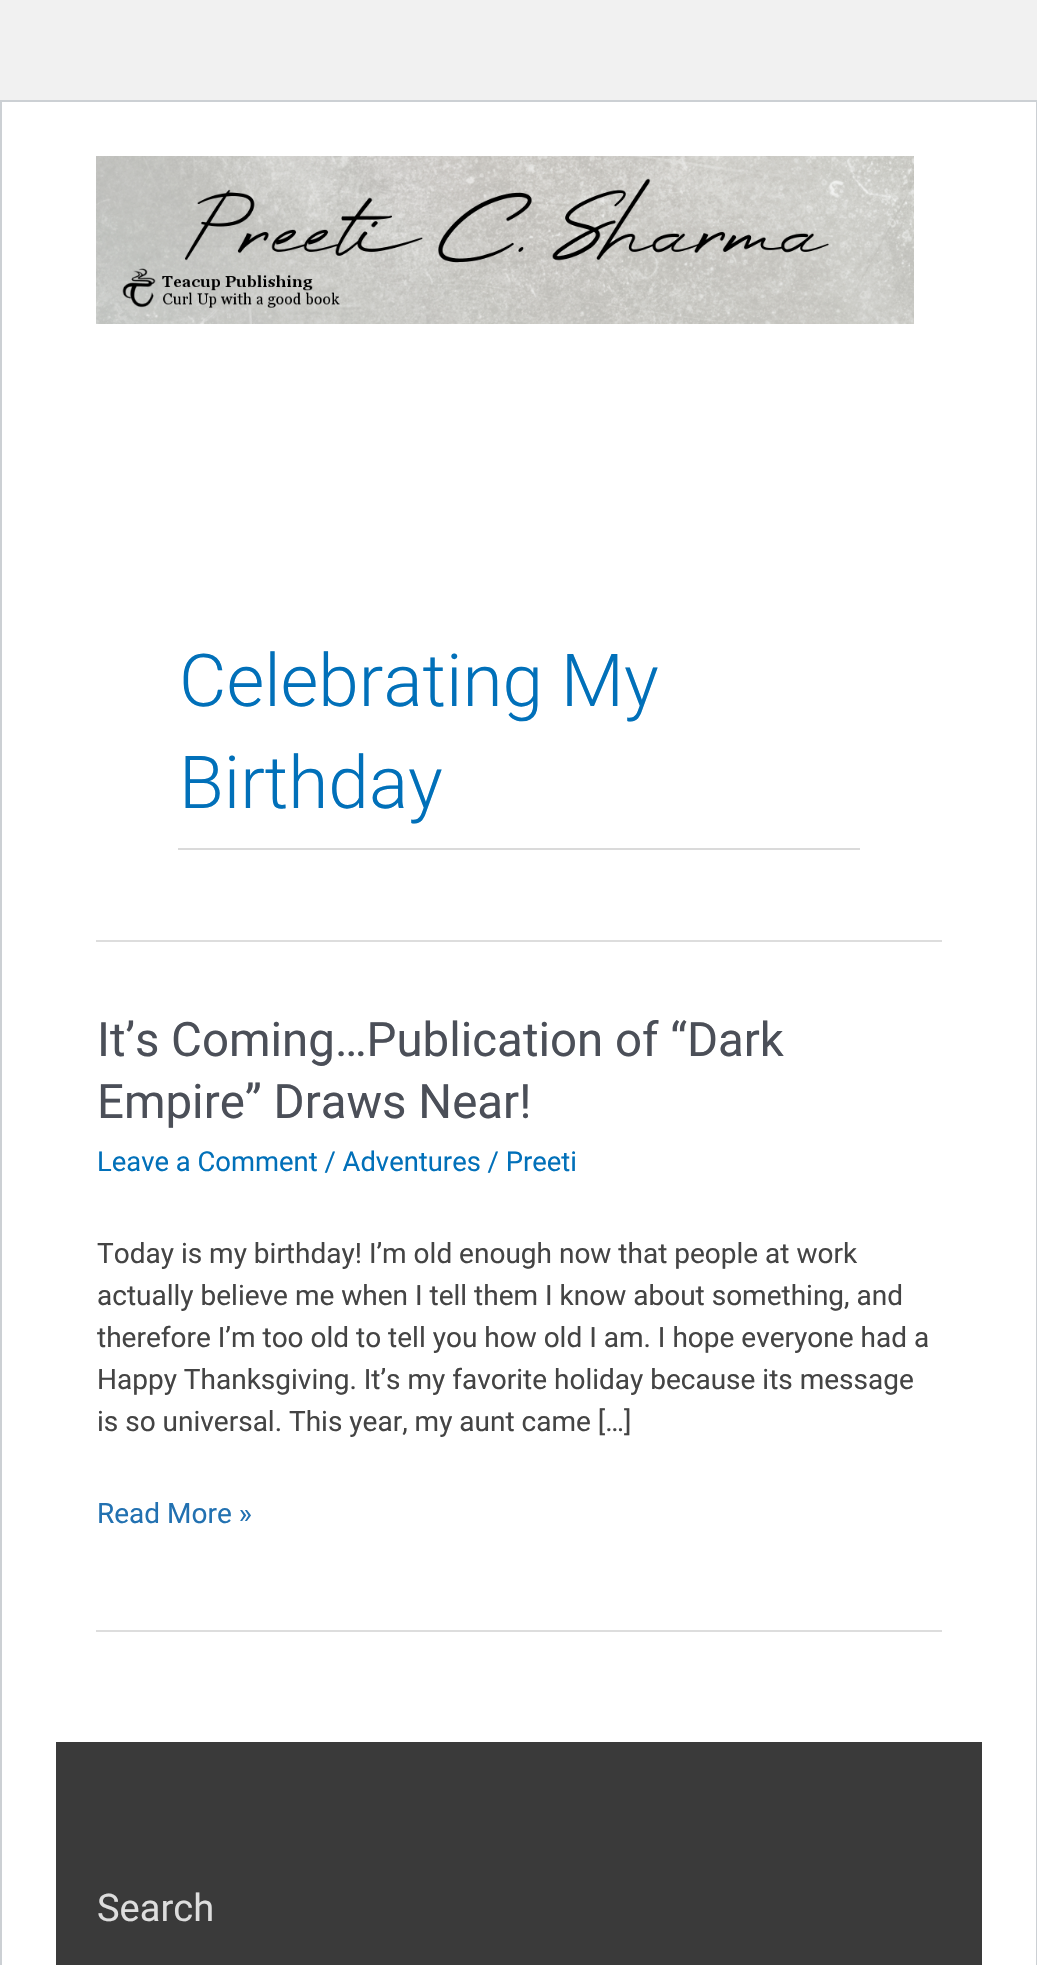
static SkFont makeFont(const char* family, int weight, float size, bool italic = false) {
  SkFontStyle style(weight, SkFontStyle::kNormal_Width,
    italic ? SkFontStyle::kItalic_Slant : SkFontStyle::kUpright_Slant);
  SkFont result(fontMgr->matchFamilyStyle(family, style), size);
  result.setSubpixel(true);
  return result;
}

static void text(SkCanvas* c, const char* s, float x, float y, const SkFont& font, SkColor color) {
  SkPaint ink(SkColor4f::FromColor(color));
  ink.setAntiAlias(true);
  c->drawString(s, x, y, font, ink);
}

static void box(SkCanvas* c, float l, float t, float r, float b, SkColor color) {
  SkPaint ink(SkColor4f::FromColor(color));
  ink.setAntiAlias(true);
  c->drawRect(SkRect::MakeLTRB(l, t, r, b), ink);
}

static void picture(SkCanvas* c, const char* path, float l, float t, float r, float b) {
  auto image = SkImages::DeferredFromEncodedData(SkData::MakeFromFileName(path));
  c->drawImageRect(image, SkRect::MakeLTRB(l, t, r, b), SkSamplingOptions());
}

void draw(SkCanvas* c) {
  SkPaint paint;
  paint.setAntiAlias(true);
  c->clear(0xfff1f1f1);
  paint.setColor(0xffffffff);
  c->drawRect(SkRect::MakeLTRB(1, 101, 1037, 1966), paint);
  paint.setStyle(SkPaint::kStroke_Style);
  paint.setStrokeWidth(2);
  paint.setColor(0xffccd0d4);
  c->drawRect(SkRect::MakeLTRB(1, 101, 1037, 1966), paint);
  picture(c, "img_01.png", 96, 156, 914, 324);
  box(c, 96, 940, 942, 942, 0xffdddddd);
  box(c, 178, 848, 860, 850, 0xffdadada);
  SkFont face1 = makeFont("Roboto", 300, 73);
  text(c, "Celebrating My", 179, 706, face1, 0xff0170b9);
  text(c, "Birthday", 179, 808, face1, 0xff0170b9);
  box(c, 96, 1630, 942, 1632, 0xffdddddd);
  SkFont face2 = makeFont("Roboto", 400, 47.4f);
  text(c, "It’s Coming…Publication of “Dark", 97, 1056, face2, 0xff4b4f58);
  text(c, "Empire” Draws Near!", 97, 1118, face2, 0xff4b4f58);
  SkFont face3 = makeFont("Roboto", 400, 27.4f);
  text(c, "Leave a Comment / Adventures / Preeti", 97, 1171, face3, 0xff0170b9);
  SkFont face4 = makeFont("Roboto", 400, 28);
  text(c, "Today is my birthday! I’m old enough now that people at work", 97, 1263, face4, 0xff444444);
  text(c, "actually believe me when I tell them I know about something, and", 97, 1305, face4, 0xff444444);
  text(c, "therefore I’m too old to tell you how old I am. I hope everyone had a", 97, 1347, face4, 0xff444444);
  text(c, "Happy Thanksgiving. It’s my favorite holiday because its message", 97, 1389, face4, 0xff444444);
  text(c, "is so universal. This year, my aunt came […]", 97, 1431, face4, 0xff444444);
  text(c, "Read More »", 97, 1523, face4, 0xff2271b1);
  box(c, 56, 1742, 982, 1965, 0xff3a3a3a);
  SkFont face5 = makeFont("Roboto", 400, 38);
  text(c, "Search", 97, 1921, face5, 0xffdddddd);
}
